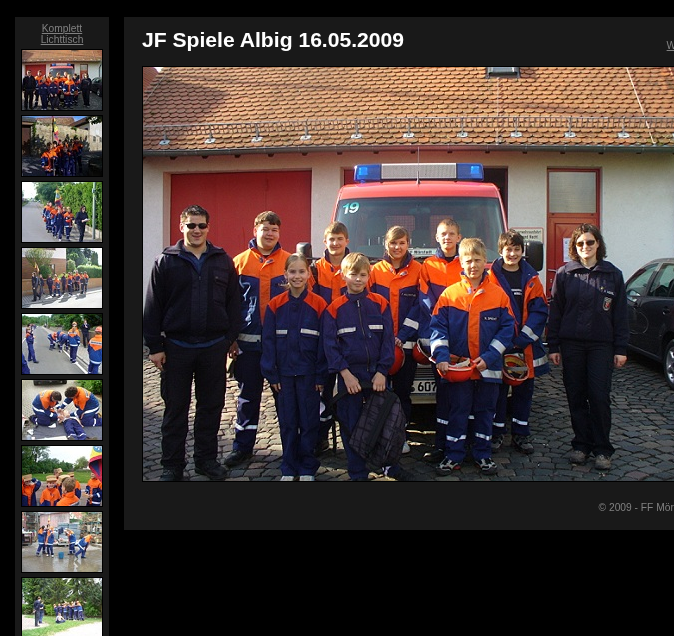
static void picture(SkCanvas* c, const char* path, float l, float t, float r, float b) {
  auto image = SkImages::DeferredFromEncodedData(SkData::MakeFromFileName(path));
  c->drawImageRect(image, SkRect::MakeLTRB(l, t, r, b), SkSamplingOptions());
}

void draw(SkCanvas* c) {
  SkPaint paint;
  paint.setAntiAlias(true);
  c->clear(0xff000000);
  picture(c, "img_01.png", 15, 17, 109, 636);
  picture(c, "img_02.png", 124, 17, 674, 530);
}
